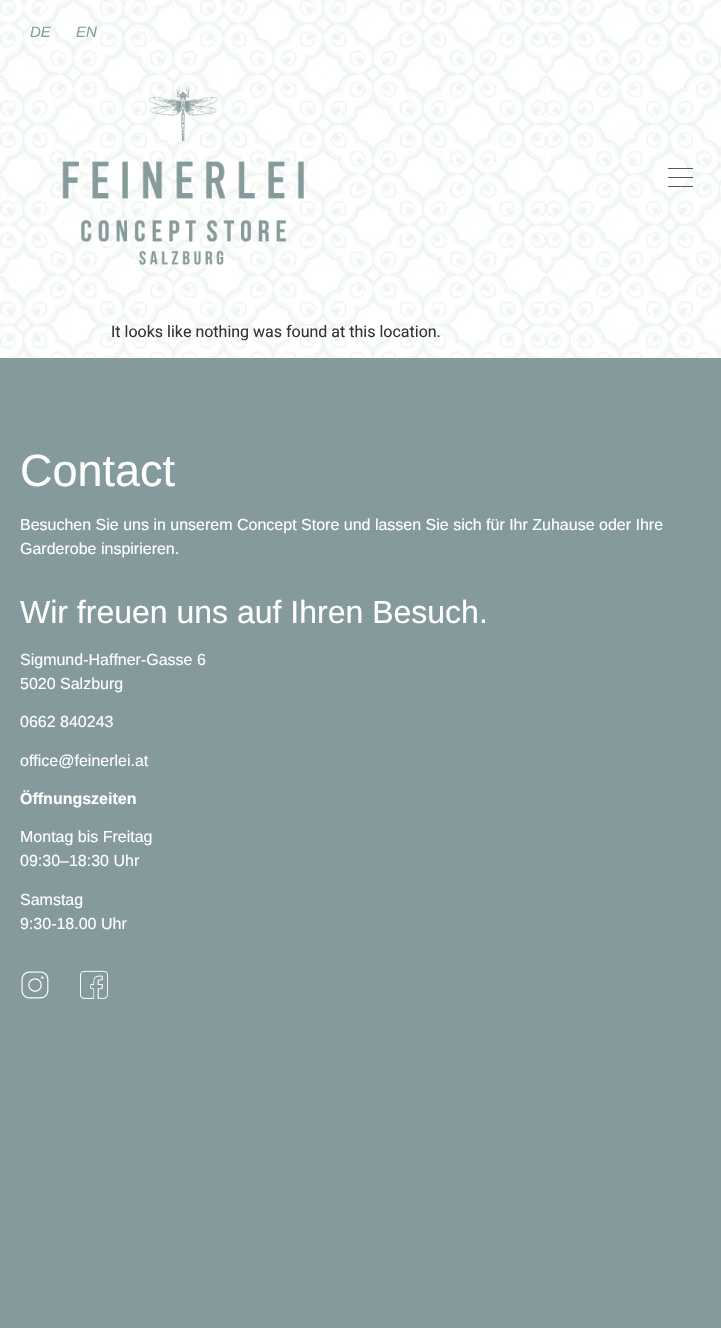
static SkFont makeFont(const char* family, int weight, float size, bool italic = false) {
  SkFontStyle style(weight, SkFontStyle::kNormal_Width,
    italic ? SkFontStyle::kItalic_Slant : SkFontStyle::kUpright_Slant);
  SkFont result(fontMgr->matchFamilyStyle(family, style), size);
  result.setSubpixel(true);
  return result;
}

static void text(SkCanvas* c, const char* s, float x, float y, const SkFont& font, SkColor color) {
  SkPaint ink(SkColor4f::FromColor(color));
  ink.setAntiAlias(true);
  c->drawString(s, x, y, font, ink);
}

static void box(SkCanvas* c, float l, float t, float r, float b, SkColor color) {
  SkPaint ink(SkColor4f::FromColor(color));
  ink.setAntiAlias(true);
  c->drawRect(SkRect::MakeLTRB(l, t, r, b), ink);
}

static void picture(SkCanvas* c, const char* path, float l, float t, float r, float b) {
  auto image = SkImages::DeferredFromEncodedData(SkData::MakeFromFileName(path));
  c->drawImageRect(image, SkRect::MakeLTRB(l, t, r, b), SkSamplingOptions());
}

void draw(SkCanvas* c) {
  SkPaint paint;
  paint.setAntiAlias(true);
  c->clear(0xffffffff);
  picture(c, "img_01.png", 0, 0, 721, 358);
  SkFont face1 = makeFont("Liberation Sans", 400, 15, true);
  text(c, "DE", 30, 37, face1, 0xff859a9c);
  text(c, "EN", 76, 37, face1, 0xff859a9c);
  picture(c, "img_02.png", 62, 87, 304, 265);
  box(c, 668, 168, 693, 169, 0xff54595f);
  box(c, 668, 177, 693, 178, 0xff54595f);
  box(c, 668, 186, 693, 187, 0xff54595f);
  SkFont face2 = makeFont("Roboto", 400, 16);
  text(c, "It looks like nothing was found at this location.", 111, 337, face2, 0xff333333);
  box(c, 0, 358, 721, 1328, 0xff859a9c);
  SkFont face3 = makeFont("Liberation Sans", 400, 45);
  text(c, "Contact", 20, 486, face3, 0xffffffff);
  SkFont face4 = makeFont("Liberation Sans", 400, 16);
  text(c, "Besuchen Sie uns in unserem Concept Store und lassen Sie sich für Ihr Zuhause oder Ihre", 20, 530, face4, 0xffffffff);
  text(c, "Garderobe inspirieren.", 20, 554, face4, 0xffffffff);
  SkFont face5 = makeFont("Liberation Sans", 400, 32);
  text(c, "Wir freuen uns auf Ihren Besuch.", 20, 623, face5, 0xffffffff);
  text(c, "Sigmund-Haffner-Gasse 6", 20, 665, face4, 0xffffffff);
  text(c, "5020 Salzburg", 20, 689, face4, 0xffffffff);
  text(c, "0662 840243", 20, 727, face4, 0xffffffff);
  text(c, "office@feinerlei.at", 20, 766, face4, 0xffffffff);
  SkFont face6 = makeFont("Liberation Sans", 700, 16);
  text(c, "Öffnungszeiten", 20, 804, face6, 0xffffffff);
  text(c, "Montag bis Freitag", 20, 842, face4, 0xffffffff);
  text(c, "09:30–18:30 Uhr", 20, 866, face4, 0xffffffff);
  text(c, "Samstag", 20, 905, face4, 0xffffffff);
  text(c, "9:30-18.00 Uhr", 20, 929, face4, 0xffffffff);
  picture(c, "img_03.png", 21, 971, 49, 999);
  picture(c, "img_04.png", 80, 970, 108, 999);
}
